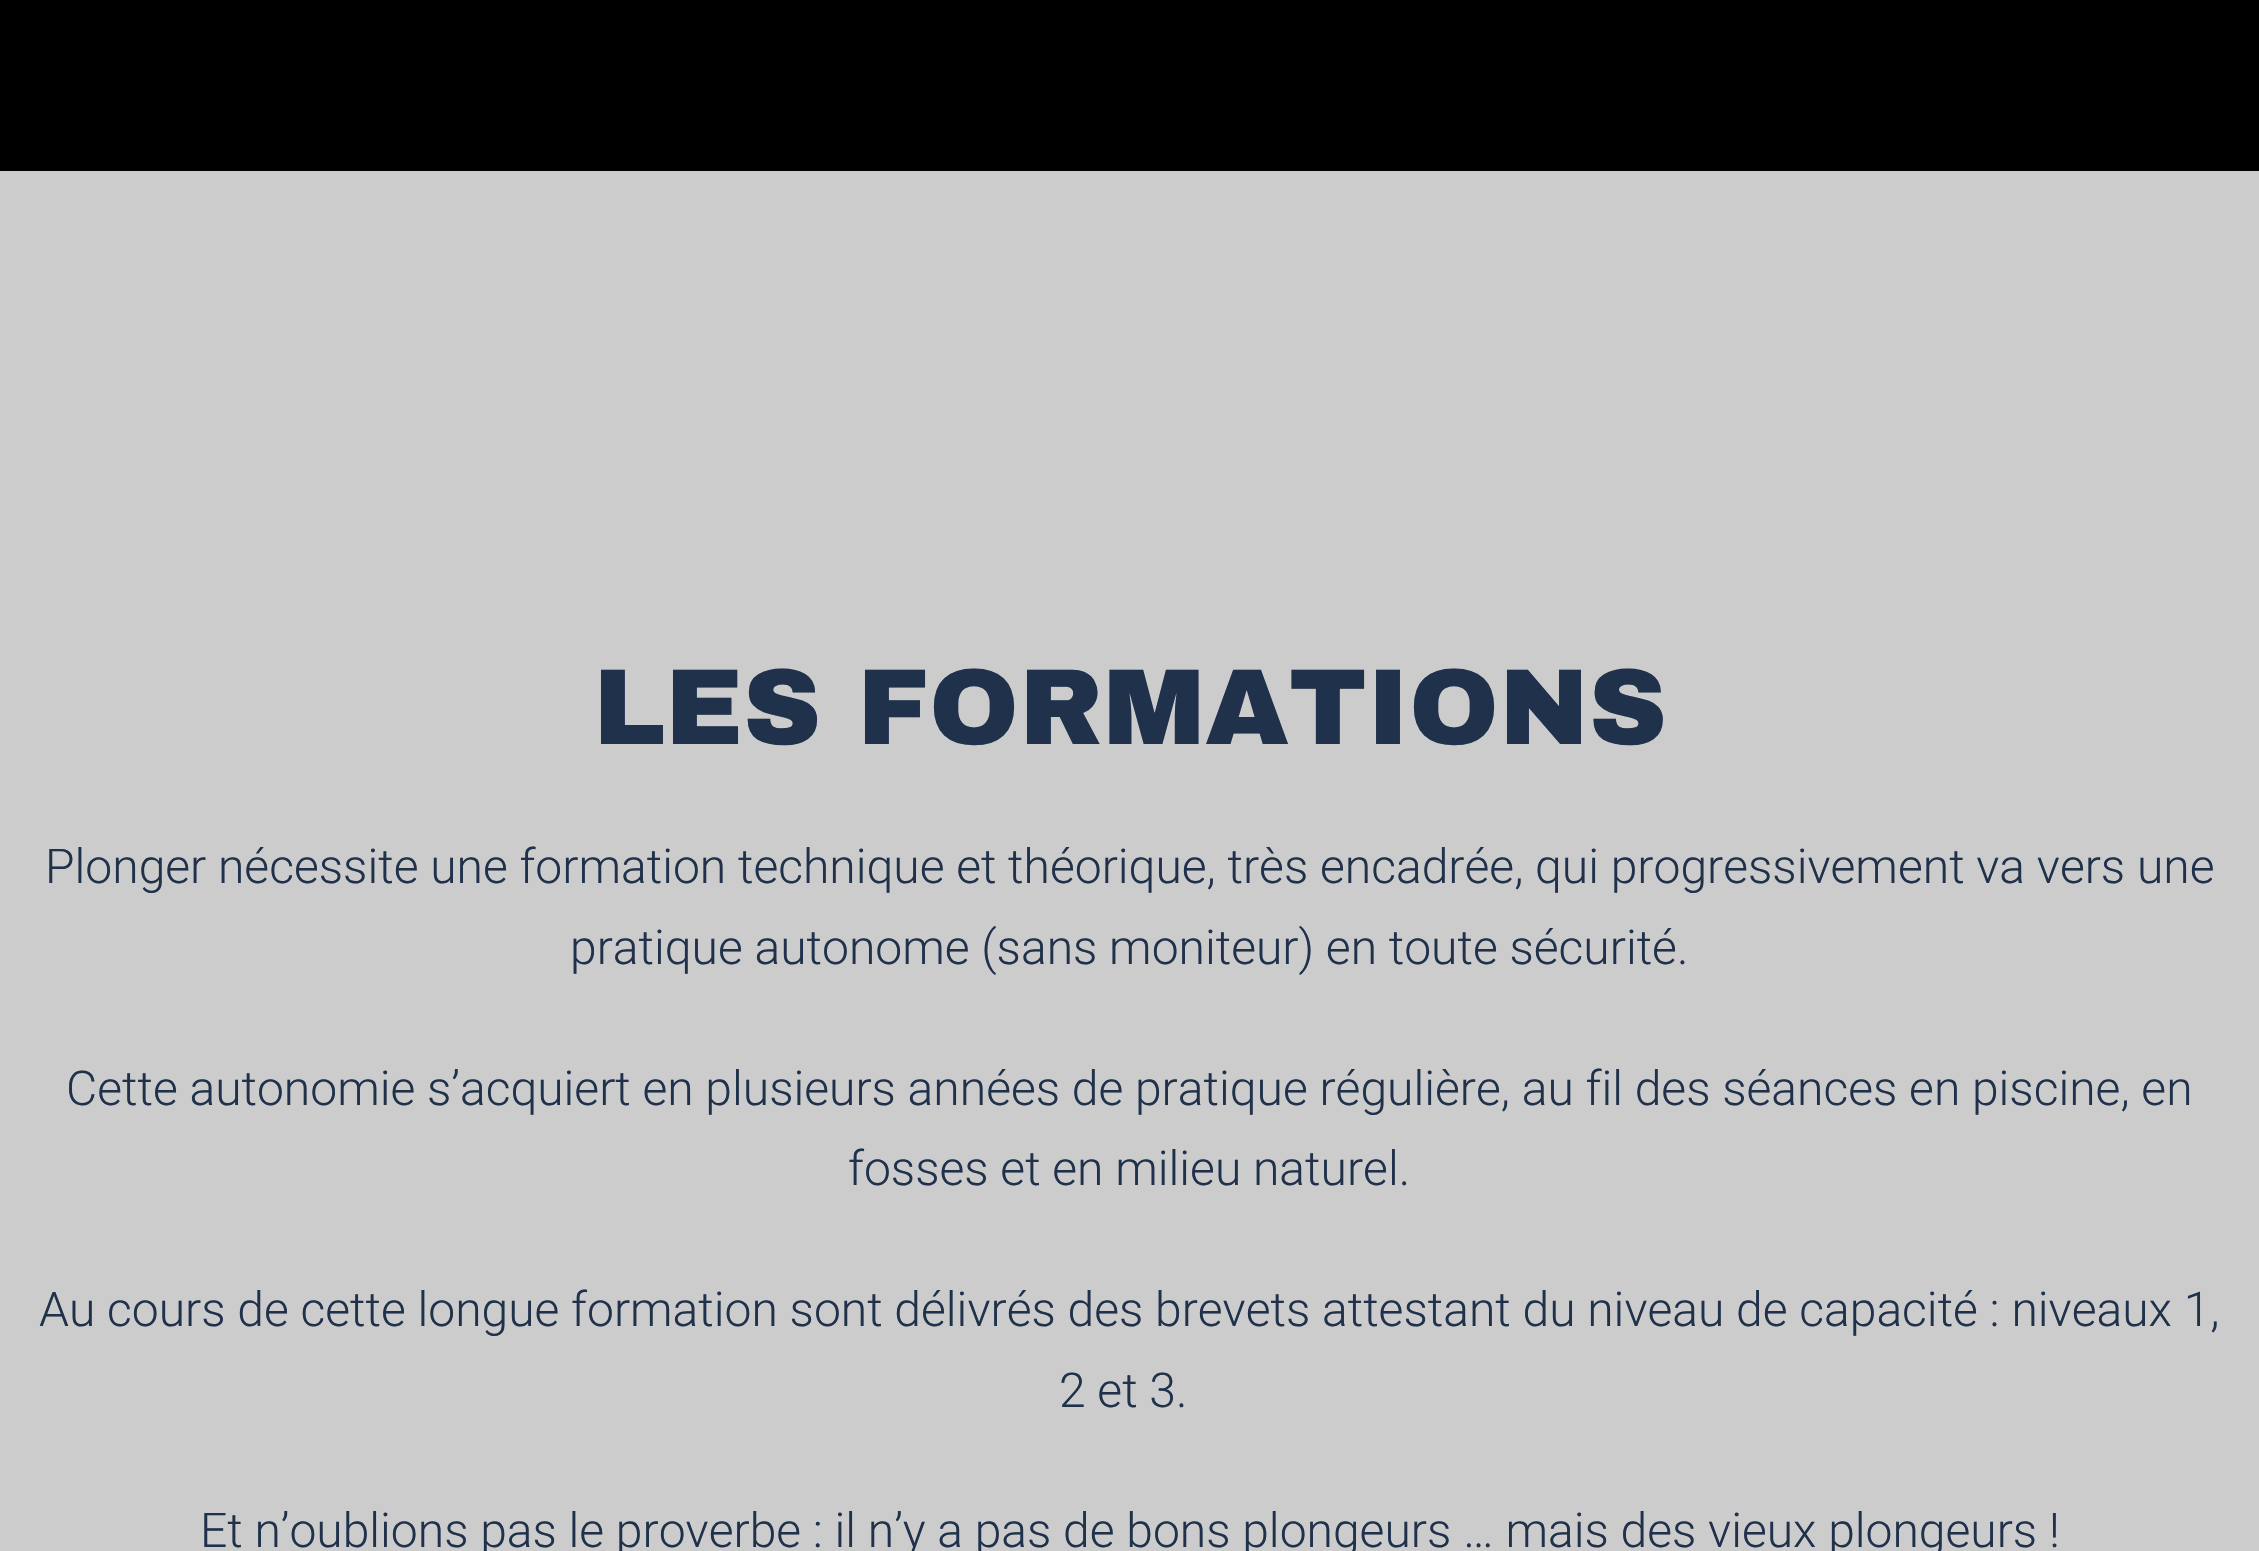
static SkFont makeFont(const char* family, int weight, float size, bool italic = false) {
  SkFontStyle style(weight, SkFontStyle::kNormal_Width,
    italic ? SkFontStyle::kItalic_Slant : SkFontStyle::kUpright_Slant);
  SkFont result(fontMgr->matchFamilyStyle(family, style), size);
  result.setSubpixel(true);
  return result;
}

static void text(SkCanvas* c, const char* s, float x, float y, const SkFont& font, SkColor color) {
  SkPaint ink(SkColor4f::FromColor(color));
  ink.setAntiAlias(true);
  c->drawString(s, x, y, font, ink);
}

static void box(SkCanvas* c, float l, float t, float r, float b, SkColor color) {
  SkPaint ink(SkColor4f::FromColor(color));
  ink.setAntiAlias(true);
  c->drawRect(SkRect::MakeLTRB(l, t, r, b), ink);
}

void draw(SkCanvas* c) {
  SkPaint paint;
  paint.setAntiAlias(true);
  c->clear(0xffcccccc);
  box(c, 0, 0, 2259, 171, 0xff000000);
  SkFont face1 = makeFont("Archivo Black", 900, 108);
  text(c, "LES FORMATIONS", 593, 744, face1, 0xff20314b);
  SkFont face2 = makeFont("Roboto", 300, 48);
  text(c, "Plonger nécessite une formation technique et théorique, très encadrée, qui progressivement va vers une", 45, 883, face2, 0xff20314b);
  text(c, "pratique autonome (sans moniteur) en toute sécurité.", 570, 964, face2, 0xff20314b);
  text(c, "Cette autonomie s’acquiert en plusieurs années de pratique régulière, au fil des séances en piscine, en", 66, 1105, face2, 0xff20314b);
  text(c, "fosses et en milieu naturel.", 848, 1185, face2, 0xff20314b);
  text(c, "Au cours de cette longue formation sont délivrés des brevets attestant du niveau de capacité : niveaux 1,", 39, 1326, face2, 0xff20314b);
  text(c, "2 et 3.", 1059, 1407, face2, 0xff20314b);
  text(c, "Et n’oublions pas le proverbe : il n’y a pas de bons plongeurs … mais des vieux plongeurs !", 200, 1547, face2, 0xff20314b);
}
